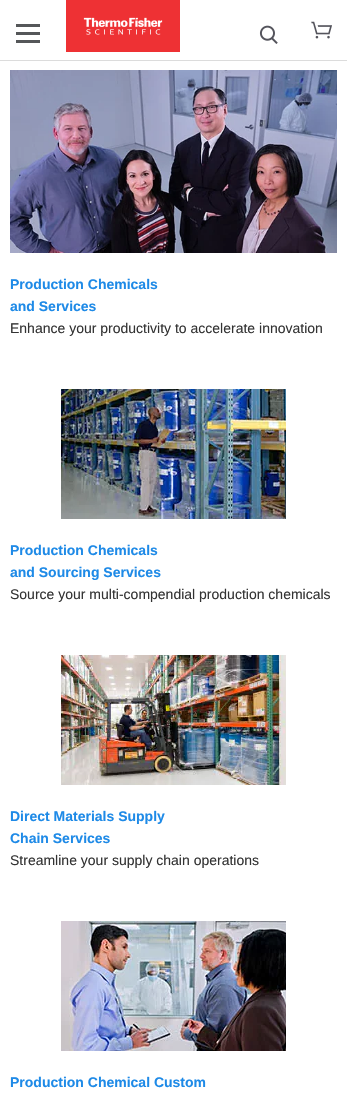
static SkFont makeFont(const char* family, int weight, float size, bool italic = false) {
  SkFontStyle style(weight, SkFontStyle::kNormal_Width,
    italic ? SkFontStyle::kItalic_Slant : SkFontStyle::kUpright_Slant);
  SkFont result(fontMgr->matchFamilyStyle(family, style), size);
  result.setSubpixel(true);
  return result;
}

static void text(SkCanvas* c, const char* s, float x, float y, const SkFont& font, SkColor color) {
  SkPaint ink(SkColor4f::FromColor(color));
  ink.setAntiAlias(true);
  c->drawString(s, x, y, font, ink);
}

static void box(SkCanvas* c, float l, float t, float r, float b, SkColor color) {
  SkPaint ink(SkColor4f::FromColor(color));
  ink.setAntiAlias(true);
  c->drawRect(SkRect::MakeLTRB(l, t, r, b), ink);
}

static void picture(SkCanvas* c, const char* path, float l, float t, float r, float b) {
  auto image = SkImages::DeferredFromEncodedData(SkData::MakeFromFileName(path));
  c->drawImageRect(image, SkRect::MakeLTRB(l, t, r, b), SkSamplingOptions());
}

void draw(SkCanvas* c) {
  SkPaint paint;
  paint.setAntiAlias(true);
  c->clear(0xffffffff);
  box(c, 0, 60, 347, 61, 0xffdcdcdc);
  box(c, 16, 32, 40, 35, 0xff555759);
  box(c, 16, 24, 40, 27, 0xff555759);
  box(c, 16, 40, 40, 43, 0xff555759);
  picture(c, "img_01.png", 66, 0, 180, 52);
  picture(c, "img_02.png", 259, 25, 278, 44);
  picture(c, "img_03.png", 311, 21, 332, 39);
  picture(c, "img_04.png", 10, 70, 337, 253);
  SkFont face1 = makeFont("Liberation Sans", 700, 14);
  text(c, "Production Chemicals", 10, 289, face1, 0xff1e8ae7);
  text(c, "and Services", 10, 311, face1, 0xff1e8ae7);
  SkFont face2 = makeFont("Liberation Sans", 400, 14);
  text(c, "Enhance your productivity to accelerate innovation", 10, 333, face2, 0xff333333);
  picture(c, "img_05.png", 61, 389, 286, 519);
  text(c, "Production Chemicals", 10, 555, face1, 0xff1e8ae7);
  text(c, "and Sourcing Services", 10, 577, face1, 0xff1e8ae7);
  text(c, "Source your multi-compendial production chemicals", 10, 599, face2, 0xff333333);
  picture(c, "img_06.png", 61, 655, 286, 785);
  text(c, "Direct Materials Supply", 10, 821, face1, 0xff1e8ae7);
  text(c, "Chain Services", 10, 843, face1, 0xff1e8ae7);
  text(c, "Streamline your supply chain operations", 10, 865, face2, 0xff333333);
  picture(c, "img_07.png", 61, 921, 286, 1051);
  text(c, "Production Chemical Custom", 10, 1087, face1, 0xff1e8ae7);
}
